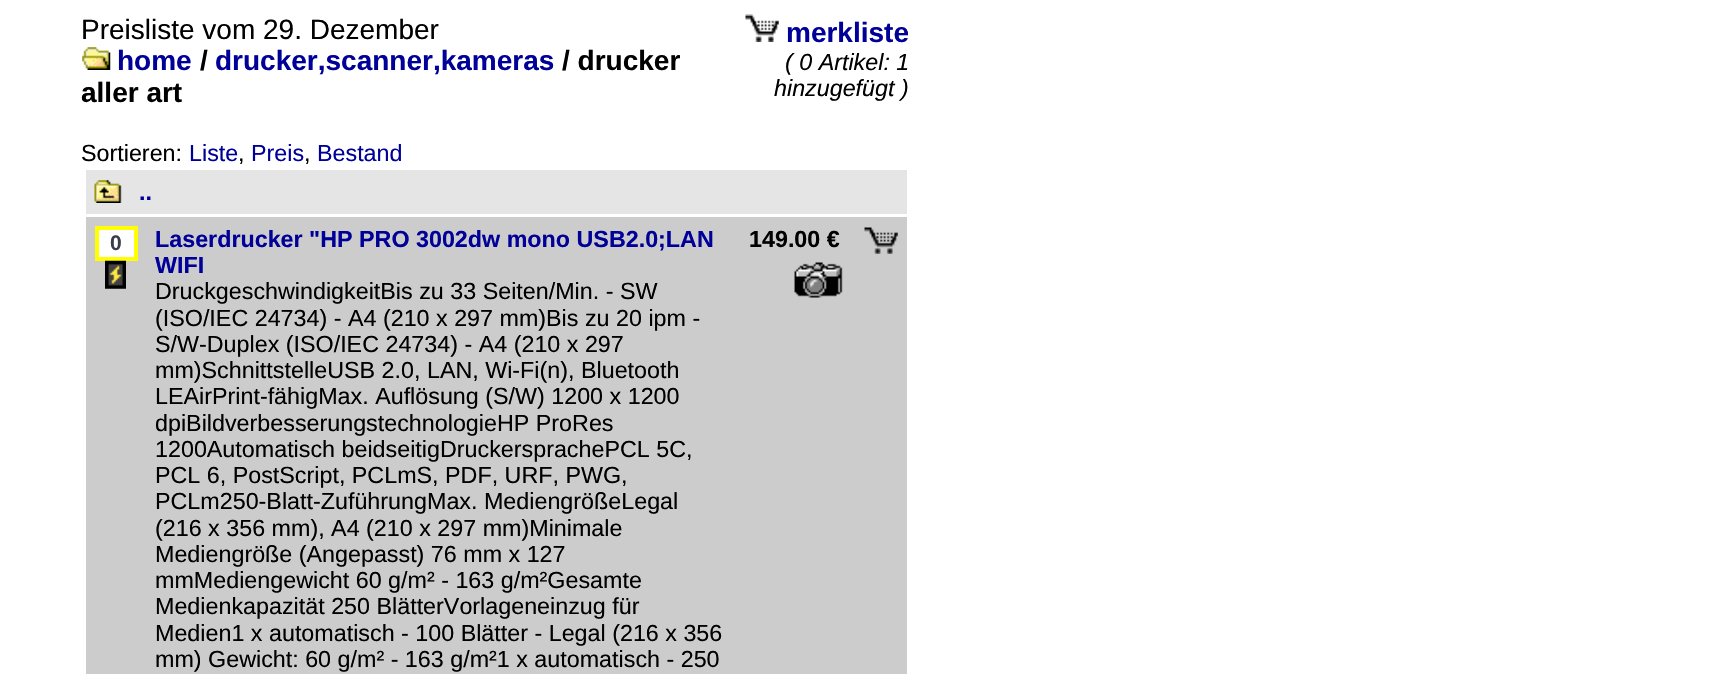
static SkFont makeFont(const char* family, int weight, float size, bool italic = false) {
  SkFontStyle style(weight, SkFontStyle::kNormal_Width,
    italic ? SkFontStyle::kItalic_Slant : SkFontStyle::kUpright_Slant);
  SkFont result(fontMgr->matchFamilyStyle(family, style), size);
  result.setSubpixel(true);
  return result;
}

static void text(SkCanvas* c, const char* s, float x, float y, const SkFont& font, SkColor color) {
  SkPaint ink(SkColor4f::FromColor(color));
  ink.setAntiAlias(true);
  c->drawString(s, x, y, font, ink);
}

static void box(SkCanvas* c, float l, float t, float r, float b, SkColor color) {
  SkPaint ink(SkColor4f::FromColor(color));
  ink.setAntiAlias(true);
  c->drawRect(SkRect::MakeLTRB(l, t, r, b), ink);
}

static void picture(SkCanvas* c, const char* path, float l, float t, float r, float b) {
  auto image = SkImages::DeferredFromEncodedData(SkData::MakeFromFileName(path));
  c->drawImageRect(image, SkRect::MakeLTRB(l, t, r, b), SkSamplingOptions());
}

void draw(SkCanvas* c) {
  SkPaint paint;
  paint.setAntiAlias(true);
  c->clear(0xffffffff);
  SkFont face1 = makeFont("Liberation Sans", 400, 28);
  text(c, "Preisliste vom 29. Dezember", 81, 39, face1, 0xff000000);
  picture(c, "img_01.png", 82, 47, 111, 70);
  SkFont face2 = makeFont("Liberation Sans", 700, 28);
  text(c, "home", 117, 70, face2, 0xff000099);
  text(c, "/", 200, 70, face2, 0xff000000);
  text(c, "drucker,scanner,kameras", 215, 70, face2, 0xff000099);
  text(c, "/ drucker", 562, 70, face2, 0xff000000);
  text(c, "aller art", 81, 102, face2, 0xff000000);
  picture(c, "img_02.png", 745, 14, 779, 42);
  text(c, "merkliste", 786, 42, face2, 0xff000099);
  SkFont face3 = makeFont("Liberation Sans", 400, 23.3f, true);
  text(c, "( 0 Artikel: 1", 785, 70, face3, 0xff000000);
  text(c, "hinzugefügt )", 774, 96, face3, 0xff000000);
  SkFont face4 = makeFont("Liberation Sans", 400, 23.3f);
  text(c, "Sortieren:", 81, 161, face4, 0xff000000);
  text(c, "Liste", 189, 161, face4, 0xff000099);
  text(c, ",", 238, 161, face4, 0xff000000);
  text(c, "Preis", 251, 161, face4, 0xff000099);
  text(c, ",", 304, 161, face4, 0xff000000);
  text(c, "Bestand", 317, 161, face4, 0xff000099);
  box(c, 86, 170, 907, 214, 0xffe5e5e5);
  picture(c, "img_03.png", 94, 180, 122, 203);
  SkFont face5 = makeFont("Liberation Sans", 700, 23.3f);
  text(c, "..", 139, 200, face5, 0xff000099);
  box(c, 86, 217, 907, 674, 0xffcccccc);
  paint.setColor(0xffffffff);
  c->drawRect(SkRect::MakeLTRB(97, 228, 136, 259), paint);
  paint.setStyle(SkPaint::kStroke_Style);
  paint.setStrokeWidth(4);
  paint.setColor(0xffffff00);
  c->drawRect(SkRect::MakeLTRB(97, 228, 136, 259), paint);
  SkFont face6 = makeFont("Liberation Sans", 700, 21);
  text(c, "0", 110, 250, face6, 0xff3a3e4a);
  picture(c, "img_04.png", 105, 260, 126, 289);
  text(c, "Laserdrucker \"HP PRO 3002dw mono USB2.0;LAN", 155, 247, face5, 0xff000099);
  text(c, "WIFI", 155, 273, face5, 0xff000099);
  text(c, "DruckgeschwindigkeitBis zu 33 Seiten/Min. - SW", 155, 299, face4, 0xff000000);
  text(c, "(ISO/IEC 24734) - A4 (210 x 297 mm)Bis zu 20 ipm -", 155, 326, face4, 0xff000000);
  text(c, "S/W-Duplex (ISO/IEC 24734) - A4 (210 x 297", 155, 352, face4, 0xff000000);
  text(c, "mm)SchnittstelleUSB 2.0, LAN, Wi-Fi(n), Bluetooth", 155, 378, face4, 0xff000000);
  text(c, "LEAirPrint-fähigMax. Auflösung (S/W) 1200 x 1200", 155, 404, face4, 0xff000000);
  text(c, "dpiBildverbesserungstechnologieHP ProRes", 155, 431, face4, 0xff000000);
  text(c, "1200Automatisch beidseitigDruckersprachePCL 5C,", 155, 457, face4, 0xff000000);
  text(c, "PCL 6, PostScript, PCLmS, PDF, URF, PWG,", 155, 483, face4, 0xff000000);
  text(c, "PCLm250-Blatt-ZuführungMax. MediengrößeLegal", 155, 509, face4, 0xff000000);
  text(c, "(216 x 356 mm), A4 (210 x 297 mm)Minimale", 155, 536, face4, 0xff000000);
  text(c, "Mediengröße (Angepasst) 76 mm x 127", 155, 562, face4, 0xff000000);
  text(c, "mmMediengewicht 60 g/m² - 163 g/m²Gesamte", 155, 588, face4, 0xff000000);
  text(c, "Medienkapazität 250 BlätterVorlageneinzug für", 155, 614, face4, 0xff000000);
  text(c, "Medien1 x automatisch - 100 Blätter - Legal (216 x 356", 155, 641, face4, 0xff000000);
  text(c, "mm) Gewicht: 60 g/m² - 163 g/m²1 x automatisch - 250", 155, 667, face4, 0xff000000);
  text(c, "149.00 €", 749, 247, face5, 0xff000000);
  picture(c, "img_05.png", 794, 262, 843, 298);
  picture(c, "img_06.png", 864, 227, 898, 254);
}
